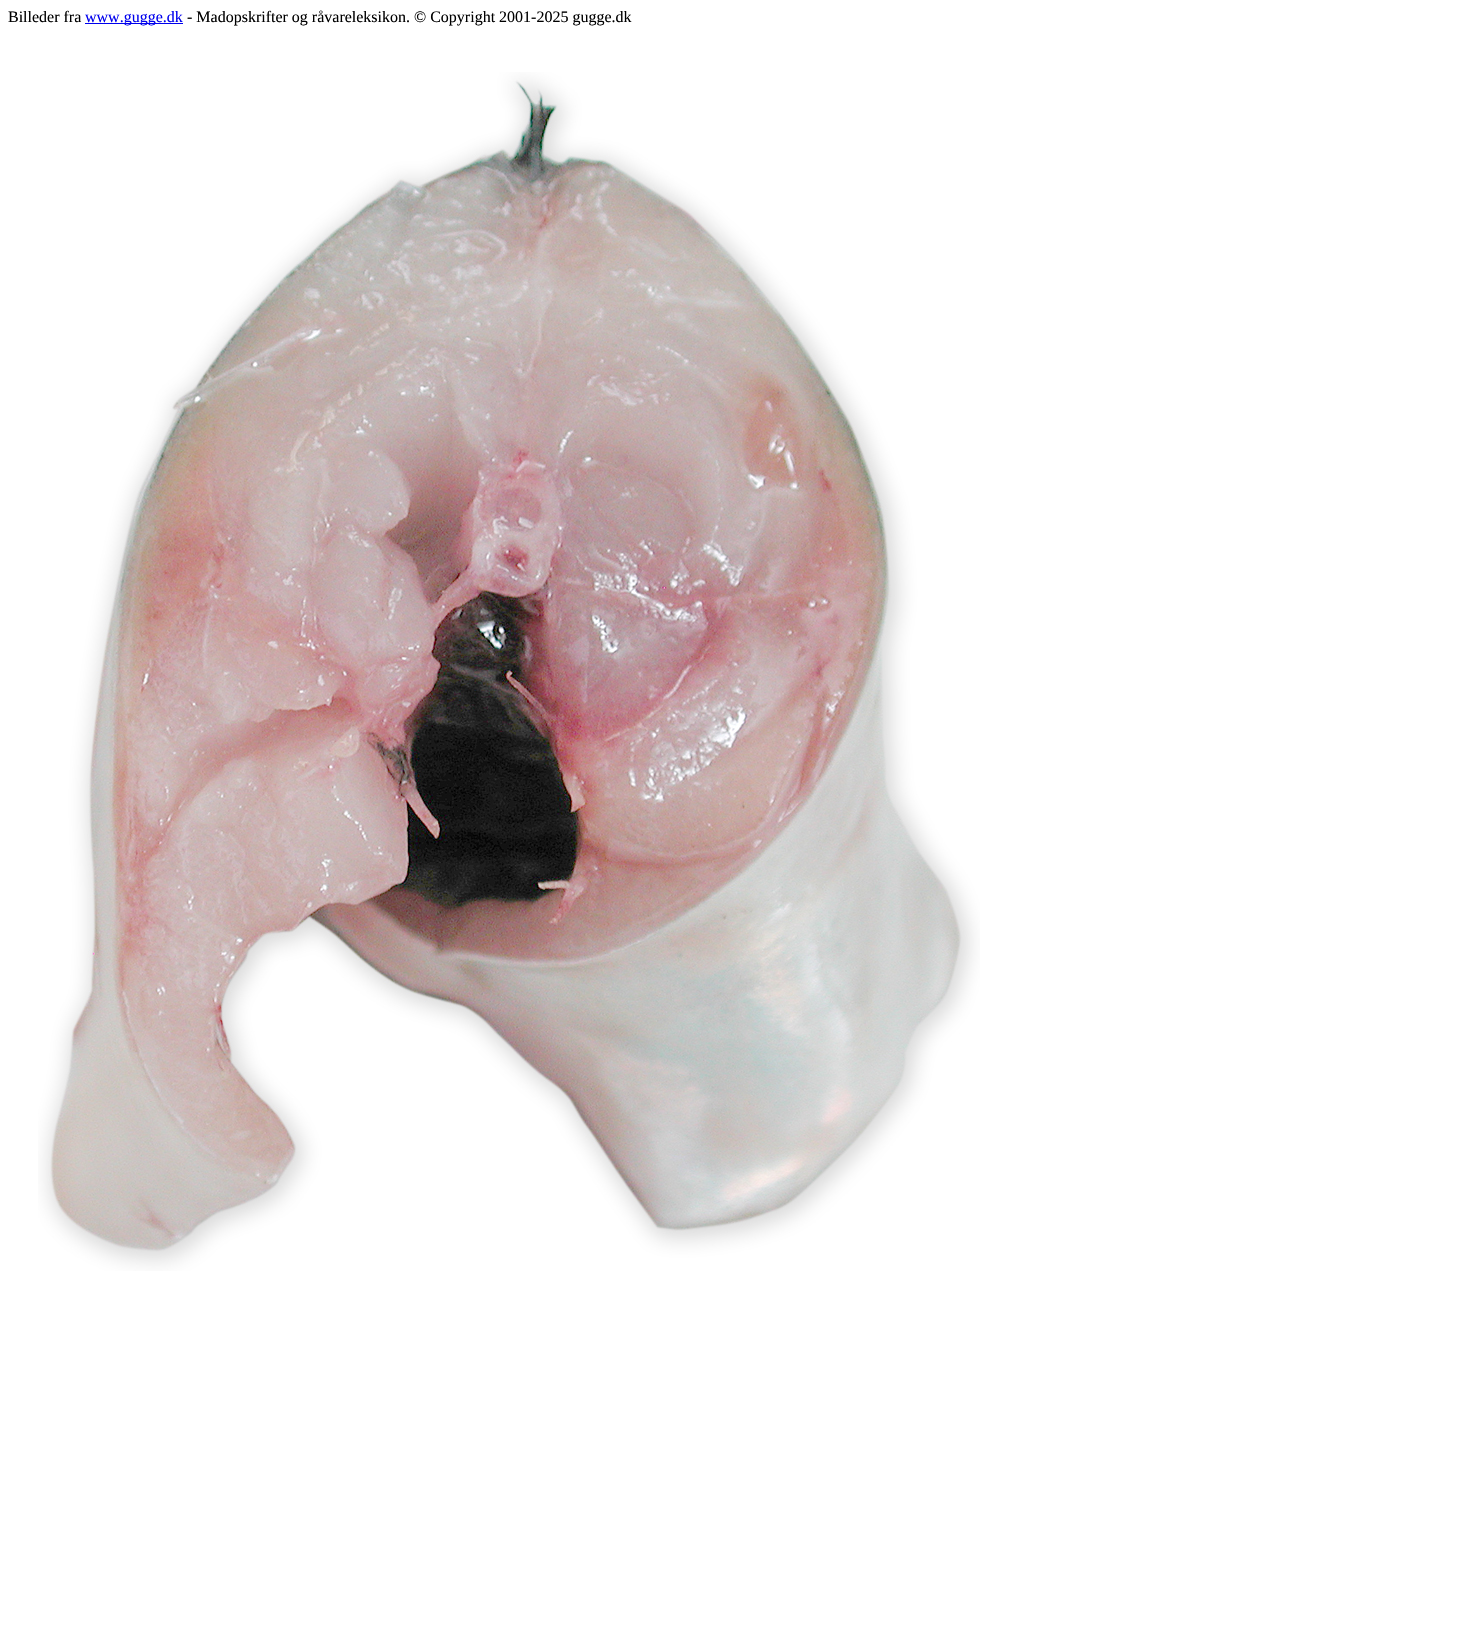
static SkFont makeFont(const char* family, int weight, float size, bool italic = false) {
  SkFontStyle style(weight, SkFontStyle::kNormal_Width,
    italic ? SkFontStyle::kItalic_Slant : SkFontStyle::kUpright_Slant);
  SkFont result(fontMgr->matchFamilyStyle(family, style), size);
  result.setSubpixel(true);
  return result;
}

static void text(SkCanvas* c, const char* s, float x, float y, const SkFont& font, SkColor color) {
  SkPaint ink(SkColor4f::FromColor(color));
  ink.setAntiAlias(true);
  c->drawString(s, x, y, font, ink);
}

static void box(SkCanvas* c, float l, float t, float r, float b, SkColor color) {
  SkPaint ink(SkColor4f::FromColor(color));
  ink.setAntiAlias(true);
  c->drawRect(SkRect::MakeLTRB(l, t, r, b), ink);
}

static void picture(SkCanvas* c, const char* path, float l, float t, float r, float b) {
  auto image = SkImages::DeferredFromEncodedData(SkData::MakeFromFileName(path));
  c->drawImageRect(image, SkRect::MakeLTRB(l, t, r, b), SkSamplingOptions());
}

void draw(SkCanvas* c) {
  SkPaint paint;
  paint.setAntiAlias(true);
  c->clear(0xffffffff);
  SkFont face1 = makeFont("Liberation Serif", 400, 16);
  text(c, "Billeder fra", 8, 22, face1, 0xff000000);
  box(c, 85, 23, 183, 24, 0xff0000ee);
  text(c, "www.gugge.dk", 85, 22, face1, 0xff0000ee);
  text(c, "- Madopskrifter og råvareleksikon. © Copyright 2001-2025 gugge.dk", 187, 22, face1, 0xff000000);
  picture(c, "img_01.png", 38, 72, 980, 1271);
}
